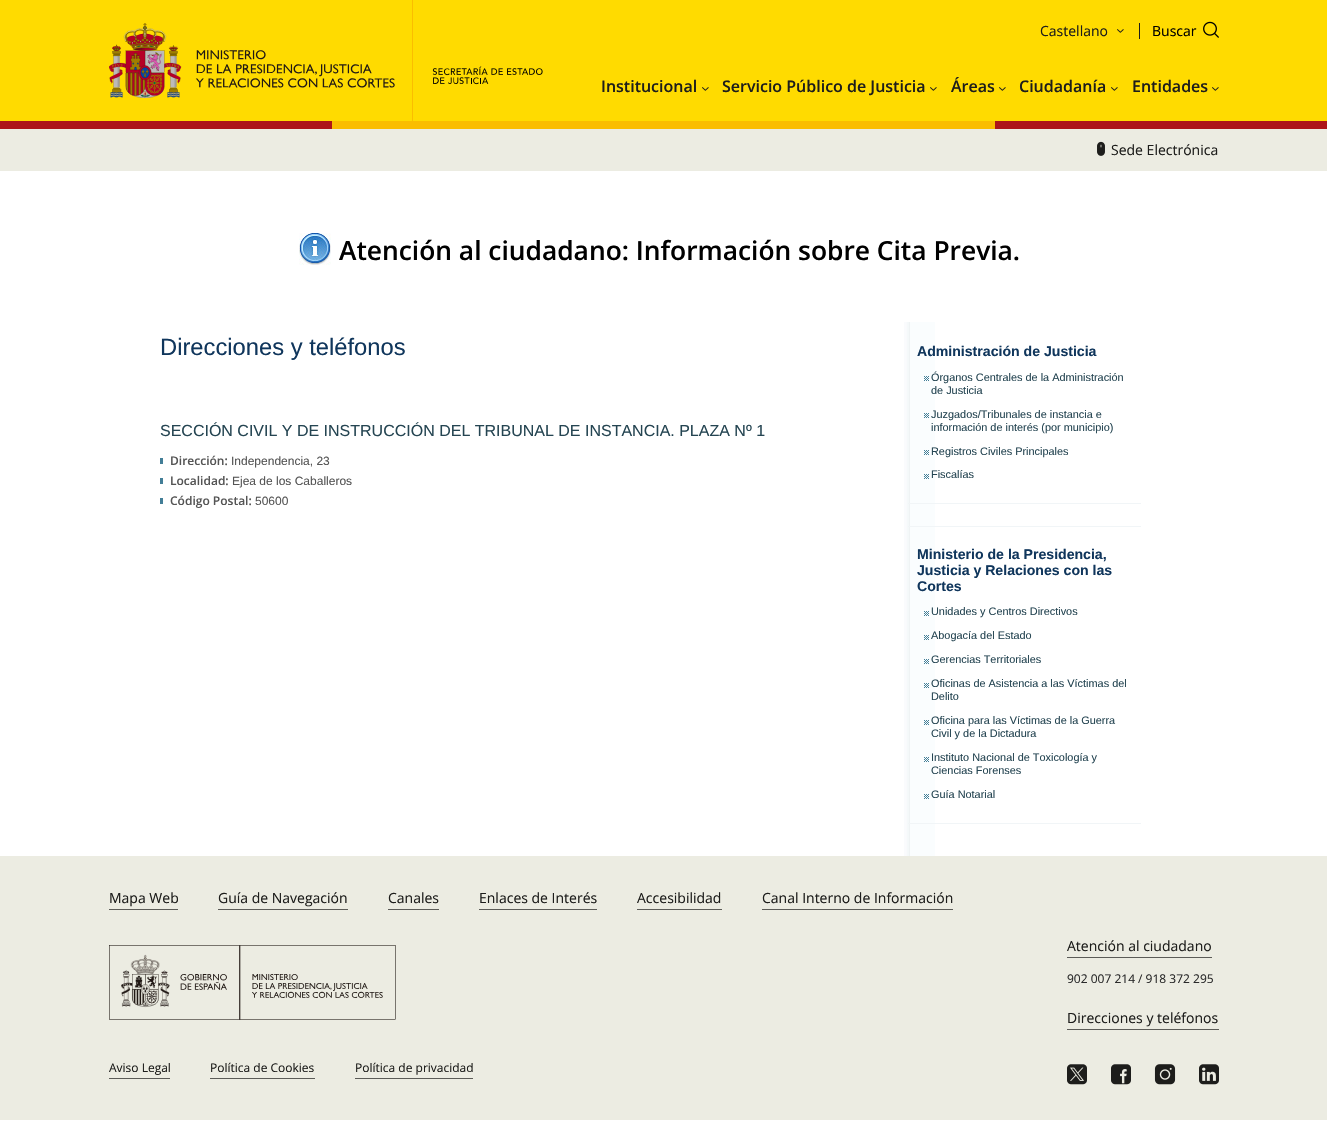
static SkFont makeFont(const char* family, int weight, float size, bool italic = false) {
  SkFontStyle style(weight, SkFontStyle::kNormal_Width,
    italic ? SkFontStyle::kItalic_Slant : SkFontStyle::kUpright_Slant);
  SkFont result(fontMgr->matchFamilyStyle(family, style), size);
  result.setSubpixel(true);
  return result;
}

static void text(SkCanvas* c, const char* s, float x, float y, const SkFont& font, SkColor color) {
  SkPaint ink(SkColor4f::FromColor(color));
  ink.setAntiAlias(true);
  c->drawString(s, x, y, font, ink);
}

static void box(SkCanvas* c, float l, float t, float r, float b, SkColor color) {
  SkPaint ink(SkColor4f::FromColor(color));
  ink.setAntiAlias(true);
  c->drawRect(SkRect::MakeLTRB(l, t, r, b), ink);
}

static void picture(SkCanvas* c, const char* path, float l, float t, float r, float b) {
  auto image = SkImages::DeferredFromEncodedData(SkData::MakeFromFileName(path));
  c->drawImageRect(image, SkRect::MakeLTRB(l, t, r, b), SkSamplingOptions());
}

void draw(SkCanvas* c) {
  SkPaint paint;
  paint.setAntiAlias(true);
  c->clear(0xffffffff);
  box(c, 0, 0, 1327, 121, 0xffffdb00);
  picture(c, "img_01.png", 109, 23, 395, 98);
  box(c, 412, 0, 413, 122, 0xfffabd00);
  picture(c, "img_02.png", 432, 66, 543, 85);
  SkFont face1 = makeFont("Open Sans", 400, 14);
  text(c, "Castellano", 1040, 36, face1, 0xff1d1d1b);
  picture(c, "img_03.png", 1117, 29, 1124, 33);
  box(c, 1139, 23, 1140, 39, 0xff1d1d1b);
  text(c, "Buscar", 1152, 36, face1, 0xff000000);
  picture(c, "img_04.png", 1203, 21, 1219, 38);
  SkFont face2 = makeFont("Open Sans", 600, 16);
  text(c, "Institucional", 601, 92, face2, 0xff1d1d1b);
  picture(c, "img_03.png", 702, 87, 709, 91);
  text(c, "Servicio Público de Justicia", 722, 92, face2, 0xff1d1d1b);
  picture(c, "img_03.png", 930, 87, 937, 91);
  text(c, "Áreas", 951, 92, face2, 0xff1d1d1b);
  picture(c, "img_03.png", 999, 87, 1006, 91);
  text(c, "Ciudadanía", 1019, 92, face2, 0xff1d1d1b);
  picture(c, "img_03.png", 1111, 87, 1118, 91);
  text(c, "Entidades", 1132, 92, face2, 0xff1d1d1b);
  picture(c, "img_03.png", 1212, 87, 1219, 91);
  box(c, 332, 121, 995, 129, 0xfffabd00);
  box(c, 0, 121, 332, 129, 0xffad1519);
  box(c, 995, 121, 1327, 129, 0xffad1519);
  box(c, 0, 129, 1327, 171, 0xffecece2);
  picture(c, "img_05.png", 1097, 141, 1105, 156);
  text(c, "Sede Electrónica", 1111, 155, face1, 0xff1d1d1b);
  picture(c, "img_06.png", 299, 233, 331, 265);
  SkFont face3 = makeFont("Open Sans", 600, 26.35f);
  text(c, "Atención al ciudadano: Información sobre Cita Previa.", 339, 260, face3, 0xff000000);
  SkFont face4 = makeFont("Liberation Sans", 400, 23.75f);
  text(c, "Direcciones y teléfonos", 160, 355, face4, 0xff10365c);
  SkFont face5 = makeFont("Liberation Sans", 400, 16);
  text(c, "SECCIÓN CIVIL Y DE INSTRUCCIÓN DEL TRIBUNAL DE INSTANCIA. PLAZA Nº 1", 160, 436, face5, 0xff254552);
  box(c, 160, 458, 163, 464, 0xff427e97);
  SkFont face6 = makeFont("Open Sans", 600, 12);
  text(c, "Dirección:", 170, 465, face6, 0xff555555);
  SkFont face7 = makeFont("Liberation Sans", 400, 12);
  text(c, "Independencia, 23", 231, 465, face7, 0xff555555);
  box(c, 160, 478, 163, 484, 0xff427e97);
  text(c, "Localidad:", 170, 485, face6, 0xff555555);
  text(c, "Ejea de los Caballeros", 232, 485, face7, 0xff555555);
  box(c, 160, 498, 163, 504, 0xff427e97);
  text(c, "Código Postal:", 170, 505, face6, 0xff555555);
  text(c, "50600", 255, 505, face7, 0xff555555);
  picture(c, "img_07.png", 904, 322, 935, 856);
  box(c, 908, 503, 1141, 504, 0xfff1f5f7);
  SkFont face8 = makeFont("Liberation Sans", 700, 14.1f);
  text(c, "Administración de Justicia", 917, 356, face8, 0xff10365c);
  picture(c, "img_08.png", 924, 376, 929, 381);
  SkFont face9 = makeFont("Liberation Sans", 400, 10.9f);
  text(c, "Órganos Centrales de la Administración", 931, 381, face9, 0xff254552);
  text(c, "de Justicia", 931, 394, face9, 0xff254552);
  picture(c, "img_08.png", 924, 413, 929, 418);
  text(c, "Juzgados/Tribunales de instancia e", 931, 418, face9, 0xff254552);
  text(c, "información de interés (por municipio)", 931, 431, face9, 0xff254552);
  picture(c, "img_08.png", 924, 450, 929, 455);
  text(c, "Registros Civiles Principales", 931, 455, face9, 0xff254552);
  picture(c, "img_08.png", 924, 474, 929, 479);
  text(c, "Fiscalías", 931, 478, face9, 0xff254552);
  box(c, 908, 526, 1141, 527, 0xfff1f5f7);
  box(c, 908, 823, 1141, 824, 0xfff1f5f7);
  text(c, "Ministerio de la Presidencia,", 917, 559, face8, 0xff10365c);
  text(c, "Justicia y Relaciones con las", 917, 575, face8, 0xff10365c);
  text(c, "Cortes", 917, 591, face8, 0xff10365c);
  picture(c, "img_08.png", 924, 611, 929, 616);
  text(c, "Unidades y Centros Directivos", 931, 615, face9, 0xff254552);
  picture(c, "img_08.png", 924, 635, 929, 640);
  text(c, "Abogacía del Estado", 931, 639, face9, 0xff254552);
  picture(c, "img_08.png", 924, 659, 929, 664);
  text(c, "Gerencias Territoriales", 931, 663, face9, 0xff254552);
  picture(c, "img_08.png", 924, 683, 929, 688);
  text(c, "Oficinas de Asistencia a las Víctimas del", 931, 687, face9, 0xff254552);
  text(c, "Delito", 931, 700, face9, 0xff254552);
  picture(c, "img_08.png", 924, 720, 929, 725);
  text(c, "Oficina para las Víctimas de la Guerra", 931, 724, face9, 0xff254552);
  text(c, "Civil y de la Dictadura", 931, 737, face9, 0xff254552);
  picture(c, "img_08.png", 924, 757, 929, 762);
  text(c, "Instituto Nacional de Toxicología y", 931, 761, face9, 0xff254552);
  text(c, "Ciencias Forenses", 931, 774, face9, 0xff254552);
  picture(c, "img_08.png", 924, 794, 929, 799);
  text(c, "Guía Notarial", 931, 798, face9, 0xff254552);
  box(c, 0, 856, 1327, 1120, 0xffecece2);
  text(c, "Mapa Web", 109, 903, face1, 0xff1d1d1b);
  box(c, 109, 909, 178, 910, 0xff5b5b57);
  text(c, "Guía de Navegación", 218, 903, face1, 0xff1d1d1b);
  box(c, 218, 909, 348, 910, 0xff5b5b57);
  text(c, "Canales", 388, 903, face1, 0xff1d1d1b);
  box(c, 388, 909, 439, 910, 0xff5b5b57);
  text(c, "Enlaces de Interés", 479, 903, face1, 0xff1d1d1b);
  box(c, 479, 909, 597, 910, 0xff5b5b57);
  text(c, "Accesibilidad", 637, 903, face1, 0xff1d1d1b);
  box(c, 637, 909, 722, 910, 0xff5b5b57);
  text(c, "Canal Interno de Información", 762, 903, face1, 0xff1d1d1b);
  box(c, 762, 909, 953, 910, 0xff5b5b57);
  picture(c, "img_09.png", 109, 945, 396, 1020);
  text(c, "Atención al ciudadano", 1067, 951, face1, 0xff1d1d1b);
  box(c, 1067, 957, 1212, 958, 0xff5b5b57);
  SkFont face10 = makeFont("Open Sans", 400, 12);
  text(c, "902 007 214 / 918 372 295", 1067, 983, face10, 0xff2a2a2a);
  text(c, "Direcciones y teléfonos", 1067, 1023, face1, 0xff1d1d1b);
  box(c, 1067, 1029, 1219, 1030, 0xff5b5b57);
  text(c, "Aviso Legal", 109, 1072, face10, 0xff1d1d1b);
  box(c, 109, 1078, 170, 1079, 0xff5b5b57);
  text(c, "Política de Cookies", 210, 1072, face10, 0xff1d1d1b);
  box(c, 210, 1078, 315, 1079, 0xff5b5b57);
  text(c, "Política de privacidad", 355, 1072, face10, 0xff1d1d1b);
  box(c, 355, 1078, 473, 1079, 0xff5b5b57);
  picture(c, "img_10.png", 1067, 1064, 1087, 1085);
  picture(c, "img_11.png", 1111, 1064, 1131, 1085);
  picture(c, "img_12.png", 1154, 1064, 1176, 1085);
  picture(c, "img_13.png", 1199, 1064, 1219, 1085);
}
